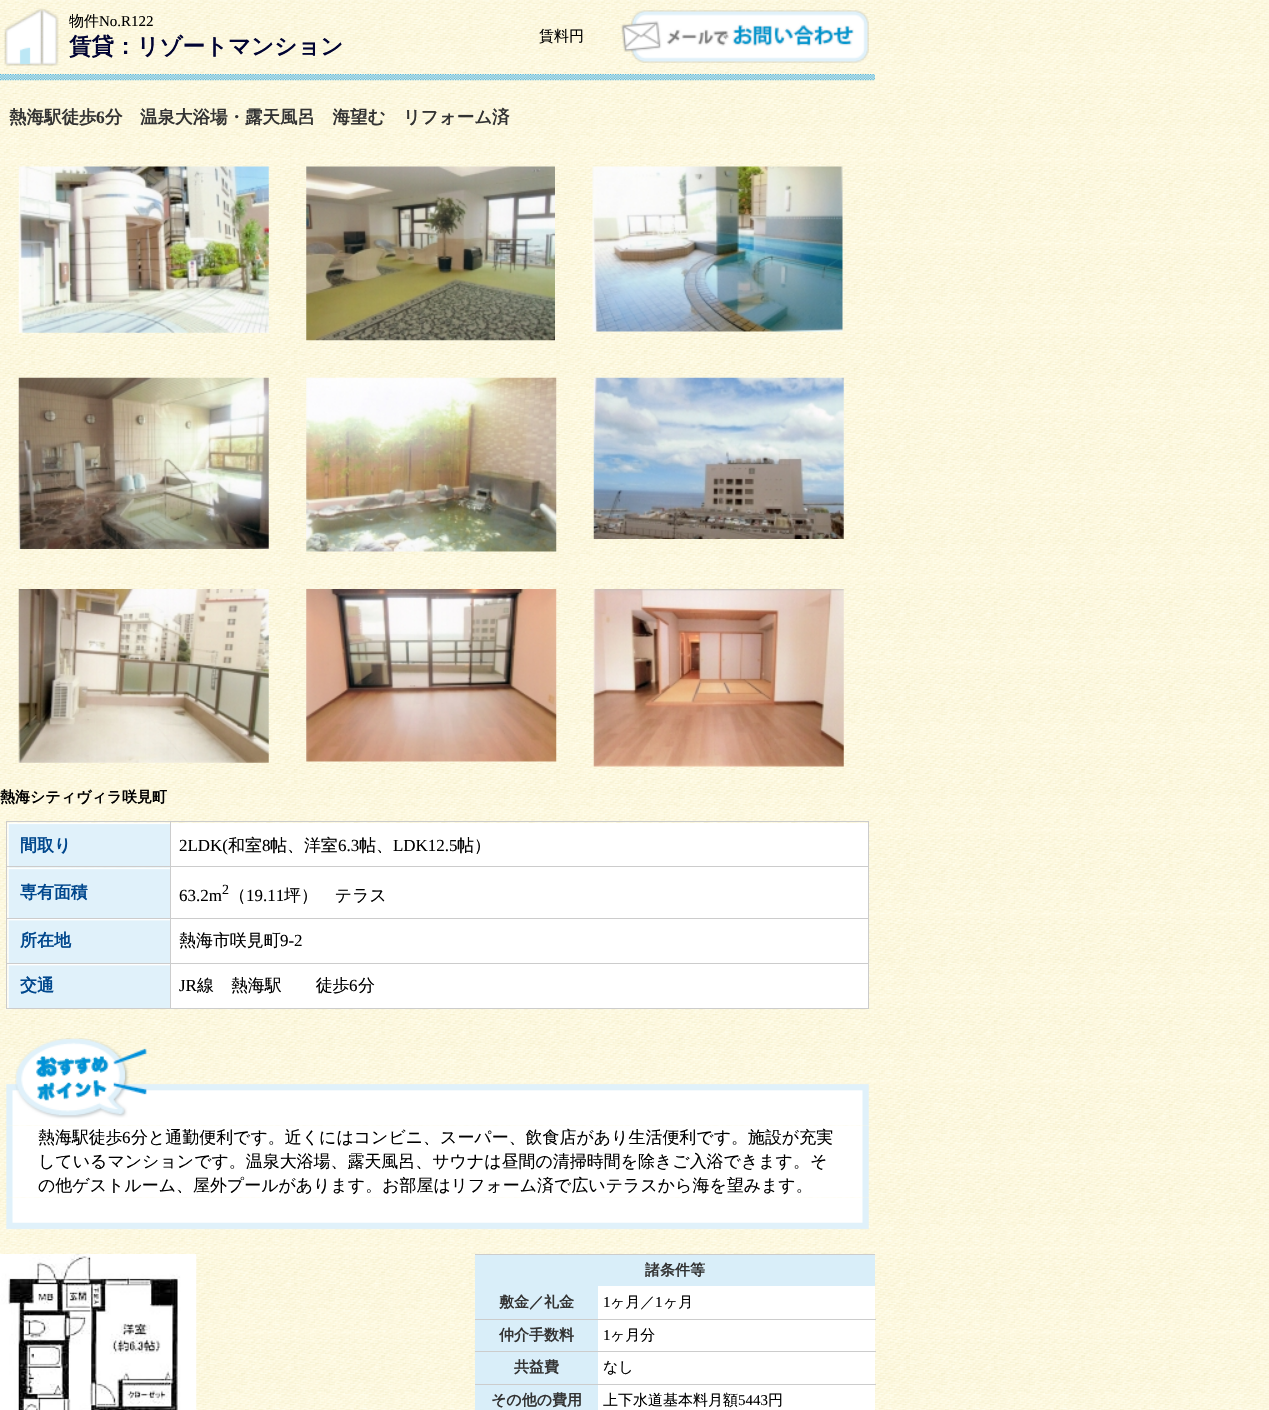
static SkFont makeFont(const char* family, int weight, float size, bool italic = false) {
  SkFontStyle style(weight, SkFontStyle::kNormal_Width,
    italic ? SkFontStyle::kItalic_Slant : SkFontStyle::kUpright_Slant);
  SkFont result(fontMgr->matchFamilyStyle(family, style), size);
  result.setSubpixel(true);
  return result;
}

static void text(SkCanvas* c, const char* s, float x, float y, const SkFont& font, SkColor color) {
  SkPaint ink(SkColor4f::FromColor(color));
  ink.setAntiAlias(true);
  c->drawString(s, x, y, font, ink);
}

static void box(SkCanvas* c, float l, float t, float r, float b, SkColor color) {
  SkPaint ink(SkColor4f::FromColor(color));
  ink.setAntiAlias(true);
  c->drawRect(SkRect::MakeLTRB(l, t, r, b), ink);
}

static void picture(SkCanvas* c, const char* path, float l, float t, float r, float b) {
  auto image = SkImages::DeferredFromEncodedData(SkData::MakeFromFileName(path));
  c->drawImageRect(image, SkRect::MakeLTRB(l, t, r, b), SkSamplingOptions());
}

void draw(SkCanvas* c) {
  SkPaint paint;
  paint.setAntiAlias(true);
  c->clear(0xffffffff);
  picture(c, "img_01.png", 0, 0, 1269, 1410);
  picture(c, "img_02.png", 4, 8, 59, 66);
  SkFont face1 = makeFont("WenQuanYi Zen Hei", 500, 15);
  text(c, "物件", 69, 26, face1, 0xff000000);
  SkFont face2 = makeFont("Liberation Serif", 400, 15);
  text(c, "No.R122", 99, 26, face2, 0xff000000);
  SkFont face3 = makeFont("WenQuanYi Zen Hei", 700, 22.5f);
  text(c, "賃貸：リゾートマンション", 69, 54, face3, 0xff000333);
  text(c, "賃料円", 539, 41, face1, 0xff000000);
  picture(c, "img_03.png", 621, 10, 869, 63);
  picture(c, "img_04.png", 0, 74, 875, 81);
  SkFont face4 = makeFont("WenQuanYi Zen Hei", 700, 17.5f);
  text(c, "熱海駅徒歩", 9, 123, face4, 0xff333333);
  SkFont face5 = makeFont("Liberation Serif", 700, 17.5f);
  text(c, "6", 96, 123, face5, 0xff333333);
  text(c, "分　温泉大浴場・露天風呂　海望む　リフォーム済", 105, 123, face4, 0xff333333);
  picture(c, "img_05.png", 18, 166, 269, 333);
  picture(c, "img_06.png", 306, 166, 555, 341);
  picture(c, "img_07.png", 592, 166, 843, 332);
  picture(c, "img_08.png", 18, 377, 269, 549);
  picture(c, "img_09.png", 306, 377, 557, 552);
  picture(c, "img_10.png", 593, 377, 844, 539);
  picture(c, "img_11.png", 18, 589, 269, 763);
  picture(c, "img_12.png", 306, 589, 557, 762);
  picture(c, "img_13.png", 593, 589, 844, 767);
  SkFont face6 = makeFont("WenQuanYi Zen Hei", 700, 15);
  text(c, "熱海シティヴィラ咲見町", 0, 802, face6, 0xff000000);
  box(c, 6, 821, 869, 822, 0xffcccccc);
  box(c, 868, 821, 869, 1009, 0xffcccccc);
  box(c, 6, 1008, 869, 1009, 0xffcccccc);
  box(c, 6, 821, 7, 1009, 0xffcccccc);
  picture(c, "img_14.png", 7, 822, 172, 868);
  SkFont face7 = makeFont("WenQuanYi Zen Hei", 700, 16.95f);
  text(c, "間取り", 20, 851, face7, 0xff00478d);
  box(c, 171, 823, 868, 868, 0xffffffff);
  picture(c, "img_15.png", 7, 867, 172, 918);
  box(c, 170, 866, 869, 867, 0xffcccccc);
  box(c, 170, 918, 869, 919, 0xffcccccc);
  box(c, 170, 963, 869, 964, 0xffcccccc);
  box(c, 170, 963, 171, 1009, 0xffcccccc);
  box(c, 6, 963, 171, 964, 0xffcccccc);
  box(c, 170, 918, 171, 964, 0xffcccccc);
  box(c, 6, 918, 171, 919, 0xffcccccc);
  box(c, 170, 866, 171, 919, 0xffcccccc);
  box(c, 6, 866, 171, 867, 0xffcccccc);
  box(c, 170, 821, 171, 868, 0xffcccccc);
  SkFont face8 = makeFont("Liberation Serif", 400, 16.95f);
  text(c, "2LDK(", 179, 851, face8, 0xff000000);
  SkFont face9 = makeFont("WenQuanYi Zen Hei", 500, 16.95f);
  text(c, "和室", 228, 851, face9, 0xff000000);
  text(c, "8", 262, 851, face8, 0xff000000);
  text(c, "帖、洋室", 270, 851, face9, 0xff000000);
  text(c, "6.3", 338, 851, face8, 0xff000000);
  text(c, "帖、", 359, 851, face9, 0xff000000);
  text(c, "LDK12.5", 393, 851, face8, 0xff000000);
  text(c, "帖）", 457, 851, face9, 0xff000000);
  text(c, "専有面積", 20, 898, face7, 0xff00478d);
  box(c, 171, 868, 868, 918, 0xffffffff);
  text(c, "63.2m", 179, 901, face8, 0xff000000);
  SkFont face10 = makeFont("Liberation Serif", 400, 14);
  text(c, "2", 222, 894, face10, 0xff000000);
  text(c, "（", 229, 901, face9, 0xff000000);
  text(c, "19.11", 246, 901, face8, 0xff000000);
  text(c, "坪）　テラス", 284, 901, face9, 0xff000000);
  picture(c, "img_16.png", 7, 919, 170, 963);
  text(c, "所在地", 20, 946, face7, 0xff00478d);
  box(c, 171, 919, 868, 963, 0xffffffff);
  text(c, "熱海市咲見町", 179, 946, face9, 0xff000000);
  text(c, "9-2", 280, 946, face8, 0xff000000);
  picture(c, "img_17.png", 7, 964, 170, 1008);
  text(c, "交通", 20, 991, face7, 0xff00478d);
  box(c, 171, 964, 868, 1008, 0xffffffff);
  text(c, "JR", 179, 991, face8, 0xff000000);
  text(c, "線　熱海駅　　徒歩", 197, 991, face9, 0xff000000);
  text(c, "6", 349, 991, face8, 0xff000000);
  text(c, "分", 358, 991, face9, 0xff000000);
  picture(c, "img_18.png", 6, 1038, 869, 1125);
  picture(c, "img_19.png", 6, 1125, 869, 1198);
  text(c, "熱海駅徒歩", 38, 1143, face9, 0xff000000);
  text(c, "6", 122, 1143, face8, 0xff000000);
  text(c, "分と通勤便利です。近くにはコンビニ、スーパー、飲食店があり生活便利です。施設が充実", 131, 1143, face9, 0xff000000);
  text(c, "しているマンションです。温泉大浴場、露天風呂、サウナは昼間の清掃時間を除きご入浴できます。そ", 38, 1167, face9, 0xff000000);
  text(c, "の他ゲストルーム、屋外プールがあります。お部屋はリフォーム済で広いテラスから海を望みます。", 38, 1191, face9, 0xff000000);
  picture(c, "img_20.png", 6, 1198, 869, 1230);
  picture(c, "img_21.png", 0, 1254, 197, 1410);
  box(c, 475, 1255, 875, 1286, 0xffd9eef9);
  box(c, 475, 1254, 875, 1255, 0xffcccccc);
  text(c, "諸条件等", 645, 1275, face6, 0xff333333);
  box(c, 475, 1286, 598, 1319, 0xffd9eef9);
  text(c, "敷金／礼金", 499, 1307, face6, 0xff333333);
  box(c, 598, 1286, 875, 1319, 0xffffffff);
  box(c, 475, 1319, 876, 1320, 0xffcccccc);
  text(c, "1", 603, 1307, face2, 0xff000000);
  text(c, "ヶ月／", 610, 1307, face1, 0xff000000);
  text(c, "1", 655, 1307, face2, 0xff000000);
  text(c, "ヶ月", 663, 1307, face1, 0xff000000);
  box(c, 475, 1320, 598, 1351, 0xffd9eef9);
  text(c, "仲介手数料", 499, 1340, face6, 0xff333333);
  box(c, 598, 1320, 875, 1351, 0xffffffff);
  box(c, 475, 1351, 876, 1352, 0xffcccccc);
  text(c, "1", 603, 1340, face2, 0xff000000);
  text(c, "ヶ月分", 610, 1340, face1, 0xff000000);
  box(c, 475, 1352, 598, 1384, 0xffd9eef9);
  text(c, "共益費", 514, 1372, face6, 0xff333333);
  box(c, 598, 1352, 875, 1384, 0xffffffff);
  box(c, 475, 1384, 876, 1385, 0xffcccccc);
  text(c, "なし", 603, 1372, face1, 0xff000000);
  box(c, 475, 1385, 598, 1410, 0xffd9eef9);
  text(c, "その他の費用", 491, 1405, face6, 0xff333333);
  box(c, 598, 1385, 875, 1410, 0xffffffff);
  text(c, "上下水道基本料月額", 603, 1405, face1, 0xff000000);
  text(c, "5443", 738, 1405, face2, 0xff000000);
  text(c, "円", 768, 1405, face1, 0xff000000);
}
